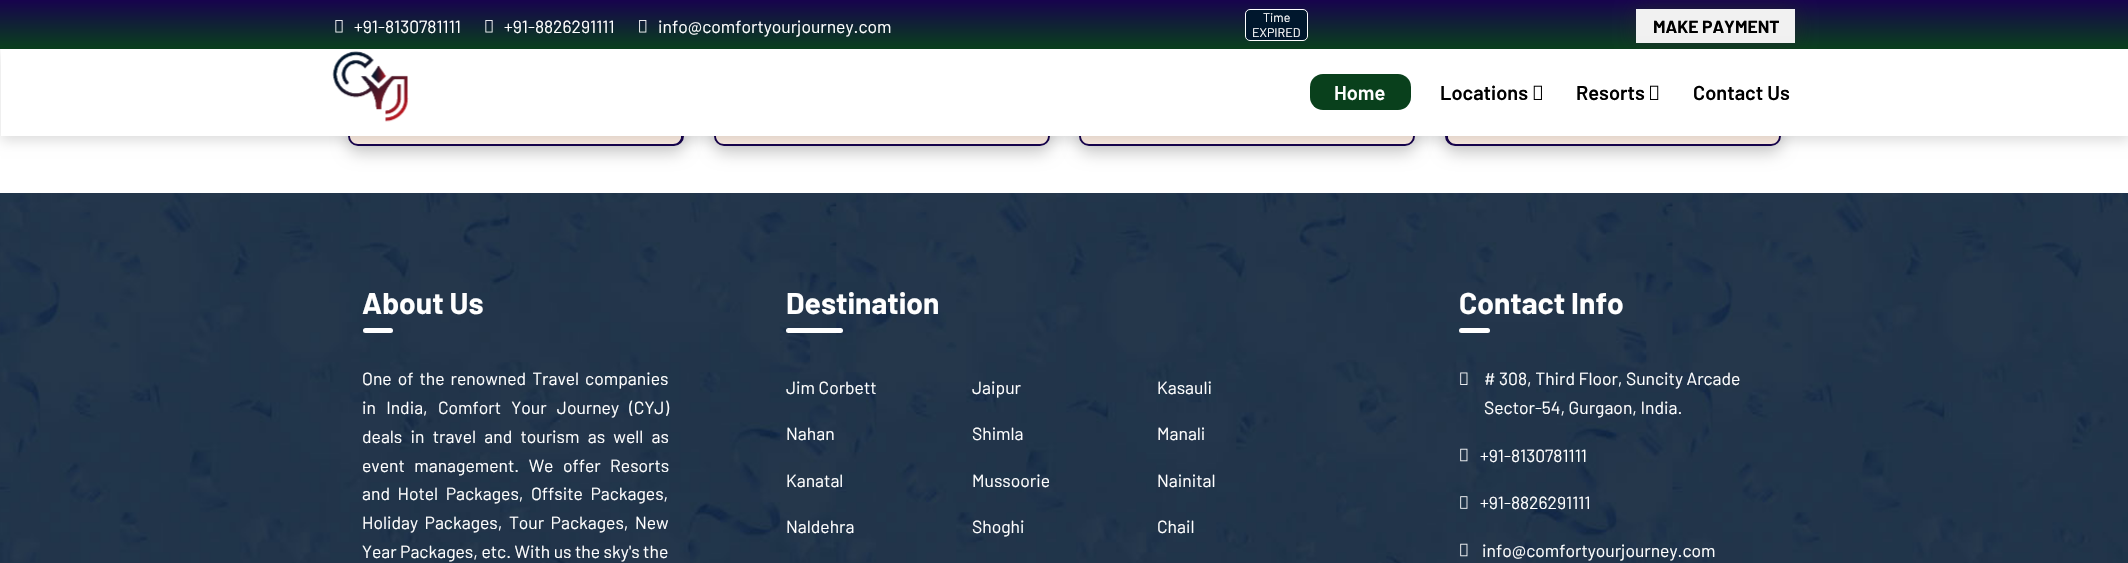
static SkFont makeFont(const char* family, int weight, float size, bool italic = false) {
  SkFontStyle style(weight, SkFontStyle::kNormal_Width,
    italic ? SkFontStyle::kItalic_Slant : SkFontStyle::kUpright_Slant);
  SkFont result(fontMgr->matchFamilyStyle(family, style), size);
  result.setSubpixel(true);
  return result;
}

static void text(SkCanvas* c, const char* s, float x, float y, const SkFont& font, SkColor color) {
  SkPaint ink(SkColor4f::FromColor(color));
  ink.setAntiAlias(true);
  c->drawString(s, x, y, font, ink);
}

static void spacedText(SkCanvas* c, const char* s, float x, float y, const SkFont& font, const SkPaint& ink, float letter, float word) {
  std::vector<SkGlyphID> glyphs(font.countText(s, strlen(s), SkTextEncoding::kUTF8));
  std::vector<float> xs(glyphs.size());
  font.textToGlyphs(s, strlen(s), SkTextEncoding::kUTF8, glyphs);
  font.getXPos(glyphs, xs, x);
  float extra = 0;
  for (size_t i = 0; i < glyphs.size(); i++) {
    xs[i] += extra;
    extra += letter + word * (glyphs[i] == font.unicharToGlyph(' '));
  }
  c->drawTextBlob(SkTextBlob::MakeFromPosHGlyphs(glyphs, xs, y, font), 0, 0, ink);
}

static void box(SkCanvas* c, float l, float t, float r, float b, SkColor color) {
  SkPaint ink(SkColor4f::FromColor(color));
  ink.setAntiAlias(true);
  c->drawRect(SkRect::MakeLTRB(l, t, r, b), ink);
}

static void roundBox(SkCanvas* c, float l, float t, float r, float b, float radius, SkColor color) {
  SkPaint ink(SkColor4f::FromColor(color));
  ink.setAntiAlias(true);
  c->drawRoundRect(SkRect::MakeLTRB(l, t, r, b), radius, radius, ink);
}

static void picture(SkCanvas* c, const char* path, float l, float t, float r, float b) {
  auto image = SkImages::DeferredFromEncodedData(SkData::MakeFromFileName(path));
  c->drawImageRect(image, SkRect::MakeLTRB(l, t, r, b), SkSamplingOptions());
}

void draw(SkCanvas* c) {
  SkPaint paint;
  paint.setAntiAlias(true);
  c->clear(0xffffffff);
  paint.setColor(0xffcccccc);
  paint.setMaskFilter(SkMaskFilter::MakeBlur(kNormal_SkBlurStyle, 8));
  c->drawRoundRect(SkRect::MakeLTRB(348, -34, 684, 153), 10, 10, paint);
  paint.setMaskFilter(nullptr);
  paint.setStyle(SkPaint::kStroke_Style);
  paint.setStrokeWidth(3);
  paint.setColor(0xff17034e);
  c->drawRoundRect(SkRect::MakeLTRB(349.5f, -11.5f, 682.5f, 144.5f), 8.5f, 8.5f, paint);
  paint.setStyle(SkPaint::kFill_Style);
  paint.setColor(0xffffefe4);
  c->drawPath(SkPathBuilder().moveTo(350, 70).lineTo(681, 70).lineTo(681, 136).cubicTo(681, 140.5f, 677.5f, 144, 673, 144).lineTo(358, 144).cubicTo(353.5f, 144, 350, 140.5f, 350, 136).close().detach(), paint);
  paint.setColor(0xffcccccc);
  paint.setMaskFilter(SkMaskFilter::MakeBlur(kNormal_SkBlurStyle, 8));
  c->drawRoundRect(SkRect::MakeLTRB(714, -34, 1050, 153), 10, 10, paint);
  paint.setMaskFilter(nullptr);
  paint.setStyle(SkPaint::kStroke_Style);
  paint.setColor(0xff17034e);
  c->drawRoundRect(SkRect::MakeLTRB(715.5f, -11.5f, 1048.5f, 144.5f), 8.5f, 8.5f, paint);
  paint.setStyle(SkPaint::kFill_Style);
  paint.setColor(0xffffefe4);
  c->drawPath(SkPathBuilder().moveTo(716, 70).lineTo(1048, 70).lineTo(1048, 136).cubicTo(1048, 140.5f, 1044.5f, 144, 1040, 144).lineTo(724, 144).cubicTo(719.5f, 144, 716, 140.5f, 716, 136).close().detach(), paint);
  paint.setColor(0xffcccccc);
  paint.setMaskFilter(SkMaskFilter::MakeBlur(kNormal_SkBlurStyle, 8));
  c->drawRoundRect(SkRect::MakeLTRB(1079, -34, 1415, 153), 10, 10, paint);
  paint.setMaskFilter(nullptr);
  paint.setStyle(SkPaint::kStroke_Style);
  paint.setColor(0xff17034e);
  c->drawRoundRect(SkRect::MakeLTRB(1080.5f, -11.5f, 1413.5f, 144.5f), 8.5f, 8.5f, paint);
  paint.setStyle(SkPaint::kFill_Style);
  paint.setColor(0xffffefe4);
  c->drawPath(SkPathBuilder().moveTo(1081, 70).lineTo(1413, 70).lineTo(1413, 136).cubicTo(1413, 140.5f, 1409.5f, 144, 1405, 144).lineTo(1089, 144).cubicTo(1084.5f, 144, 1081, 140.5f, 1081, 136).close().detach(), paint);
  paint.setColor(0xffcccccc);
  paint.setMaskFilter(SkMaskFilter::MakeBlur(kNormal_SkBlurStyle, 8));
  c->drawRoundRect(SkRect::MakeLTRB(1445, -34, 1781, 153), 10, 10, paint);
  paint.setMaskFilter(nullptr);
  paint.setStyle(SkPaint::kStroke_Style);
  paint.setColor(0xff17034e);
  c->drawRoundRect(SkRect::MakeLTRB(1446.5f, -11.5f, 1779.5f, 144.5f), 8.5f, 8.5f, paint);
  paint.setStyle(SkPaint::kFill_Style);
  paint.setColor(0xffffefe4);
  c->drawPath(SkPathBuilder().moveTo(1448, 70).lineTo(1779, 70).lineTo(1779, 136).cubicTo(1779, 140.5f, 1775.5f, 144, 1771, 144).lineTo(1456, 144).cubicTo(1451.5f, 144, 1448, 140.5f, 1448, 136).close().detach(), paint);
  {
    const SkColor colors[] = {0xff17034e, 0xff09401c};
    const float stops[] = {0, 1};
    const SkPoint ends[] = {{1064, 0}, {1064, 49}};
    paint.setShader(SkGradientShader::MakeLinear(ends, colors, stops, 2, SkTileMode::kClamp));
    paint.setAlpha(255);
  }
  c->drawRect(SkRect::MakeLTRB(0, 0, 2128, 49), paint);
  picture(c, "img_01.png", 335, 20, 343, 33);
  SkFont face1 = makeFont("Barlow", 400, 17.5f);
  text(c, "+91-8130781111", 354, 33, face1, 0xffffffff);
  picture(c, "img_01.png", 485, 20, 493, 33);
  text(c, "+91-8826291111", 504, 33, face1, 0xffffffff);
  picture(c, "img_02.png", 639, 20, 647, 33);
  text(c, "info@comfortyourjourney.com", 658, 33, face1, 0xffffffff);
  paint.setShader(nullptr);
  paint.setColor(0xff00172d);
  c->drawRoundRect(SkRect::MakeLTRB(1245.5f, 9.5f, 1307.5f, 40.5f), 4.5f, 4.5f, paint);
  paint.setStyle(SkPaint::kStroke_Style);
  paint.setStrokeWidth(1);
  paint.setColor(0xffffffff);
  c->drawRoundRect(SkRect::MakeLTRB(1245.5f, 9.5f, 1307.5f, 40.5f), 4.5f, 4.5f, paint);
  SkFont face2 = makeFont("Barlow", 400, 12.5f);
  text(c, "Time", 1263, 22, face2, 0xffffffff);
  text(c, "EXPIRED", 1252, 37, face2, 0xffffffff);
  paint.setStyle(SkPaint::kFill_Style);
  paint.setColor(0x702b2b2b);
  paint.setMaskFilter(SkMaskFilter::MakeBlur(kNormal_SkBlurStyle, 9.5f));
  c->drawRect(SkRect::MakeLTRB(1635, 8, 1796, 44), paint);
  paint.setMaskFilter(nullptr);
  box(c, 1636, 9, 1795, 43, 0xfff1f1f1);
  SkFont face3 = makeFont("Barlow", 700, 17.5f);
  text(c, "MAKE PAYMENT", 1653, 33, face3, 0xff000000);
  paint.setColor(0x21000000);
  paint.setMaskFilter(SkMaskFilter::MakeBlur(kNormal_SkBlurStyle, 6));
  c->drawRect(SkRect::MakeLTRB(1, 54, 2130, 141), paint);
  paint.setMaskFilter(nullptr);
  box(c, 1, 49, 2128, 136, 0xffffffff);
  picture(c, "img_03.png", 332, 51, 409, 122);
  roundBox(c, 1310, 74, 1411, 110, 13, 0xff09401c);
  SkFont face4 = makeFont("Barlow", 600, 20);
  text(c, "Home", 1334, 100, face4, 0xffffffff);
  text(c, "Locations", 1440, 100, face4, 0xff000000);
  picture(c, "img_04.png", 1533, 85, 1542, 100);
  text(c, "Resorts", 1576, 100, face4, 0xff000000);
  picture(c, "img_05.png", 1650, 85, 1659, 100);
  text(c, "Contact Us", 1693, 100, face4, 0xff000000);
  picture(c, "img_06.png", 0, 193, 2128, 563);
  SkFont face5 = makeFont("Barlow", 700, 30);
  text(c, "About Us", 362, 314, face5, 0xffffffff);
  roundBox(c, 363, 328, 393, 333, 2.5f, 0xffffffff);
  paint.setColor(0xffffffff);
  spacedText(c, "One of the renowned Travel companies", 362, 385, face1, paint, 0, 2.5f);
  spacedText(c, "in India, Comfort Your Journey (CYJ)", 362, 414, face1, paint, 0, 6.75f);
  spacedText(c, "deals in travel and tourism as well as", 362, 443, face1, paint, 0, 4.75f);
  spacedText(c, "event management. We offer Resorts", 362, 472, face1, paint, 0, 6);
  spacedText(c, "and Hotel Packages, Offsite Packages,", 362, 500, face1, paint, 0, 4);
  spacedText(c, "Holiday Packages, Tour Packages, New", 362, 529, face1, paint, 0, 3);
  text(c, "Year Packages, etc. With us the sky's the", 362, 558, face1, 0xffffffff);
  text(c, "Destination", 786, 314, face5, 0xffffffff);
  roundBox(c, 786, 328, 843, 333, 2.5f, 0xffffffff);
  text(c, "Jim Corbett", 786, 394, face1, 0xffffffff);
  text(c, "Jaipur", 972, 394, face1, 0xffffffff);
  text(c, "Kasauli", 1157, 394, face1, 0xffffffff);
  text(c, "Nahan", 786, 440, face1, 0xffffffff);
  text(c, "Shimla", 972, 440, face1, 0xffffffff);
  text(c, "Manali", 1157, 440, face1, 0xffffffff);
  text(c, "Kanatal", 786, 487, face1, 0xffffffff);
  text(c, "Mussoorie", 972, 487, face1, 0xffffffff);
  text(c, "Nainital", 1157, 487, face1, 0xffffffff);
  text(c, "Naldehra", 786, 533, face1, 0xffffffff);
  text(c, "Shoghi", 972, 533, face1, 0xffffffff);
  text(c, "Chail", 1157, 533, face1, 0xffffffff);
  text(c, "Contact Info", 1459, 314, face5, 0xffffffff);
  roundBox(c, 1459, 328, 1490, 333, 2.5f, 0xffffffff);
  picture(c, "img_07.png", 1460, 372, 1468, 385);
  text(c, "# 308, Third Floor, Suncity Arcade", 1484, 385, face1, 0xffffffff);
  text(c, "Sector-54, Gurgaon, India.", 1484, 414, face1, 0xffffffff);
  picture(c, "img_08.png", 1460, 448, 1468, 462);
  text(c, "+91-8130781111", 1480, 462, face1, 0xffffffff);
  picture(c, "img_09.png", 1460, 496, 1468, 509);
  text(c, "+91-8826291111", 1480, 509, face1, 0xffffffff);
  picture(c, "img_10.png", 1460, 543, 1468, 557);
  text(c, "info@comfortyourjourney.com", 1482, 557, face1, 0xffffffff);
}
